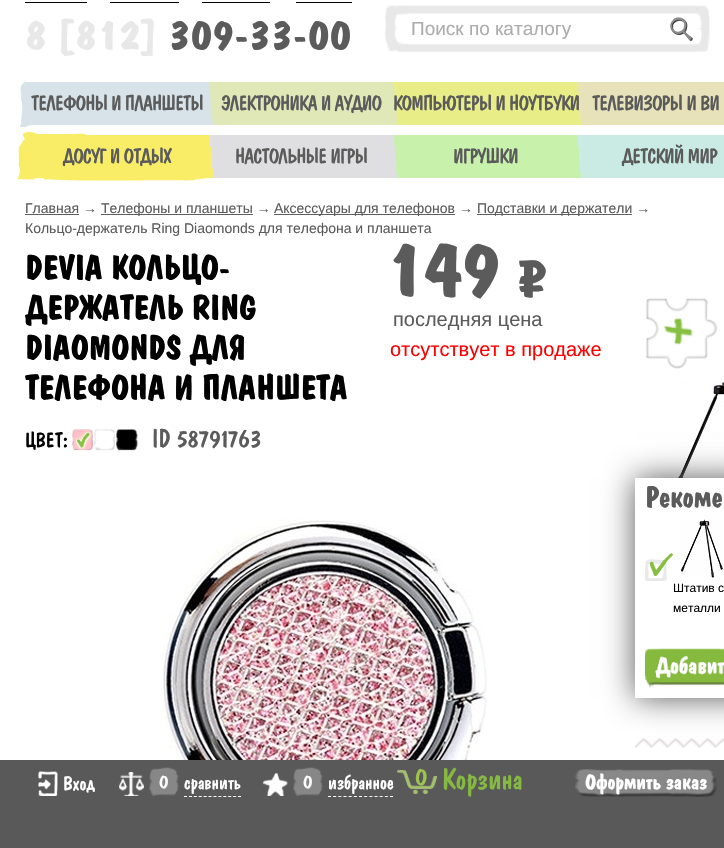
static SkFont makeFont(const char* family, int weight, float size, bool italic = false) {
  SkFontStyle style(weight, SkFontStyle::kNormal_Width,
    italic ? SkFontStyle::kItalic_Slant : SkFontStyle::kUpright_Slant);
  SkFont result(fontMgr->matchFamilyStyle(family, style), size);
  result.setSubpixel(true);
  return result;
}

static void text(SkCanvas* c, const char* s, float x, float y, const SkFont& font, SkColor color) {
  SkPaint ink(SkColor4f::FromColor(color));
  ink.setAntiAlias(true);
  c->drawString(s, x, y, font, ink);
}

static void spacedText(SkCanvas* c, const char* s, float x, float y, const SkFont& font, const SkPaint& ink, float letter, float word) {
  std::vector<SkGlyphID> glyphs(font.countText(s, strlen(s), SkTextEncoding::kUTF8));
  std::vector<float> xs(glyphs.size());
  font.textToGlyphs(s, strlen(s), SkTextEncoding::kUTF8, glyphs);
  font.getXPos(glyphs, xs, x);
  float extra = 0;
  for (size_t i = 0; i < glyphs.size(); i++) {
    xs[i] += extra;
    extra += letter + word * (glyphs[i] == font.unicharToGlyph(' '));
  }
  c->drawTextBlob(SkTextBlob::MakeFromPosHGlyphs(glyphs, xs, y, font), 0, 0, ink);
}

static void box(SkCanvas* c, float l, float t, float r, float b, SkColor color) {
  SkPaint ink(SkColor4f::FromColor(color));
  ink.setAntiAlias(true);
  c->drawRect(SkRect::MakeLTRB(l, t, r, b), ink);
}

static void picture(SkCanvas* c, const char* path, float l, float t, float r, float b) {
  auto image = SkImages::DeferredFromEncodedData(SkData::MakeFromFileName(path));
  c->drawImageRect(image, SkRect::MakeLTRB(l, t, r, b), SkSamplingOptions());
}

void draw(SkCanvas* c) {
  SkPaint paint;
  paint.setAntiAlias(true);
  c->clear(0xffffffff);
  box(c, 25, 2, 87, 3, 0xff000000);
  box(c, 110, 2, 179, 3, 0xff000000);
  box(c, 202, 2, 270, 3, 0xff000000);
  box(c, 296, 2, 352, 3, 0xff000000);
  SkFont face1 = makeFont("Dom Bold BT", 700, 43);
  paint.setColor(0xffe8e8e8);
  spacedText(c, "8 [812]", 25, 49, face1, paint, 1, 0);
  paint.setColor(0xff5b5b5b);
  spacedText(c, "309-33-00", 169, 49, face1, paint, 1, 0);
  picture(c, "img_01.png", 409, 5, 710, 52);
  picture(c, "img_02.png", 384, 5, 409, 52);
  SkFont face2 = makeFont("Liberation Sans", 400, 19);
  text(c, "Поиск по каталогу", 411, 35, face2, 0xffacacac);
  picture(c, "img_03.png", 670, 17, 693, 41);
  box(c, 25, 82, 209, 125, 0xffd8e3e9);
  picture(c, "img_04.png", 20, 80, 31, 127);
  SkFont face3 = makeFont("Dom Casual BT", 400, 21);
  spacedText(c, "ТЕЛЕФОНЫ И ПЛАНШЕТЫ", 31, 110, face3, paint, -1, 0);
  box(c, 213, 82, 393, 125, 0xffe0e8b7);
  picture(c, "img_05.png", 209, 82, 213, 125);
  spacedText(c, "ЭЛЕКТРОНИКА И АУДИО", 221, 110, face3, paint, -1, 0);
  box(c, 393, 82, 577, 125, 0xffe8ed87);
  picture(c, "img_06.png", 393, 82, 398, 125);
  picture(c, "img_07.png", 577, 82, 582, 125);
  spacedText(c, "КОМПЬЮТЕРЫ И НОУТБУКИ", 393, 110, face3, paint, -1, 0);
  box(c, 582, 82, 724, 125, 0xffe7e2ba);
  spacedText(c, "ТЕЛЕВИЗОРЫ И ВИ", 592, 110, face3, paint, -1, 0);
  box(c, 25, 135, 209, 178, 0xfff9ed67);
  picture(c, "img_08.png", 18, 132, 87, 180);
  spacedText(c, "ДОСУГ И ОТДЫХ", 63, 163, face3, paint, -1, 0);
  box(c, 209, 135, 393, 178, 0xffdfdfe1);
  picture(c, "img_10.png", 209, 135, 213, 178);
  picture(c, "img_09.png", 42, 177, 215, 181);
  spacedText(c, "НАСТОЛЬНЫЕ ИГРЫ", 235, 163, face3, paint, -1, 0);
  box(c, 398, 135, 577, 178, 0xffc8f1ab);
  picture(c, "img_11.png", 393, 135, 398, 178);
  spacedText(c, "ИГРУШКИ", 453, 163, face3, paint, -1, 0);
  box(c, 577, 135, 724, 178, 0xffcaebe4);
  picture(c, "img_12.png", 577, 135, 582, 178);
  spacedText(c, "ДЕТСКИЙ МИР", 622, 163, face3, paint, -1, 0);
  SkFont face4 = makeFont("Liberation Sans", 400, 14);
  text(c, "Главная →", 25, 213, face4, 0xff5b5b5b);
  box(c, 25, 214, 79, 215, 0xff5f5f5f);
  box(c, 101, 214, 253, 215, 0xff5f5f5f);
  text(c, "Телефоны и планшеты →", 101, 213, face4, 0xff5b5b5b);
  box(c, 274, 214, 455, 215, 0xff5f5f5f);
  text(c, "Аксессуары для телефонов →", 274, 213, face4, 0xff5b5b5b);
  box(c, 477, 214, 632, 215, 0xff5f5f5f);
  text(c, "Подставки и держатели →", 477, 213, face4, 0xff5b5b5b);
  text(c, "Кольцо-держатель Ring Diaomonds для телефона и планшета", 25, 233, face4, 0xff5b5b5b);
  SkFont face5 = makeFont("Dom Bold BT", 700, 34.75f);
  text(c, "DEVIA КОЛЬЦО-", 25, 279, face5, 0xff000000);
  text(c, "ДЕРЖАТЕЛЬ RING", 25, 319, face5, 0xff000000);
  text(c, "DIAOMONDS ДЛЯ", 25, 359, face5, 0xff000000);
  text(c, "ТЕЛЕФОНА И ПЛАНШЕТА", 25, 399, face5, 0xff000000);
  text(c, "ЦВЕТ:", 25, 447, face3, 0xff000000);
  box(c, 72, 428, 93, 451, 0xffffc0cb);
  picture(c, "img_13.png", 71, 428, 93, 452);
  picture(c, "img_14.png", 94, 429, 115, 451);
  box(c, 116, 428, 138, 451, 0xff000000);
  picture(c, "img_15.png", 115, 428, 139, 452);
  SkFont face6 = makeFont("Dom Casual BT", 400, 26);
  text(c, "ID 58791763", 152, 447, face6, 0xff5b5b5b);
  SkFont face7 = makeFont("Dom Bold BT", 700, 79);
  text(c, "149", 385, 295, face7, 0xff5b5b5b);
  SkFont face8 = makeFont("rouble", 400, 55);
  text(c, "R", 519, 296, face8, 0xff5b5b5b);
  SkFont face9 = makeFont("Liberation Sans", 400, 20);
  text(c, "последняя цена", 393, 326, face9, 0xff5b5b5b);
  text(c, "отсутствует в продаже", 390, 356, face9, 0xffff0000);
  picture(c, "img_16.png", 162, 519, 487, 760);
  picture(c, "img_17.png", 646, 298, 718, 369);
  picture(c, "img_18.png", 675, 382, 724, 478);
  picture(c, "img_22.png", 635, 738, 724, 748);
  paint.setColor(0xff595959);
  paint.setMaskFilter(SkMaskFilter::MakeBlur(kNormal_SkBlurStyle, 15));
  c->drawRect(SkRect::MakeLTRB(635, 478, 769, 698), paint);
  paint.setMaskFilter(nullptr);
  box(c, 635, 478, 724, 698, 0xffffffff);
  SkFont face10 = makeFont("Dom Bold BT", 700, 30);
  text(c, "Рекоме", 645, 507, face10, 0xff5b5b5b);
  picture(c, "img_19.png", 645, 553, 673, 581);
  picture(c, "img_20.png", 681, 519, 723, 578);
  SkFont face11 = makeFont("Liberation Sans", 400, 12);
  text(c, "Штатив с", 673, 592, face11, 0xff000000);
  text(c, "металли", 673, 612, face11, 0xff000000);
  picture(c, "img_21.png", 645, 648, 724, 688);
  box(c, 0, 760, 724, 848, 0xff595959);
  picture(c, "img_23.png", 38, 771, 58, 796);
  SkFont face12 = makeFont("Dom Casual BT", 400, 20);
  text(c, "Вход", 63, 790, face12, 0xffffffff);
  picture(c, "img_24.png", 119, 772, 144, 796);
  picture(c, "img_25.png", 149, 767, 179, 796);
  text(c, "0", 159, 788, face12, 0xffffffff);
  paint.setStyle(SkPaint::kStroke_Style);
  paint.setStrokeWidth(1);
  paint.setColor(0xffffffff);
  paint.setPathEffect(SkDashPathEffect::Make({{3, 1.91f}}, 0));
  c->drawPath(SkPathBuilder().moveTo(184, 796.5f).lineTo(241, 796.5f).detach(), paint);
  paint.setPathEffect(nullptr);
  text(c, "сравнить", 184, 789, face12, 0xffffffff);
  picture(c, "img_26.png", 263, 773, 288, 796);
  picture(c, "img_25.png", 293, 767, 323, 796);
  text(c, "0", 303, 788, face12, 0xffffffff);
  paint.setPathEffect(SkDashPathEffect::Make({{3, 2.17f}}, 0));
  c->drawPath(SkPathBuilder().moveTo(328, 796.5f).lineTo(393, 796.5f).detach(), paint);
  paint.setPathEffect(nullptr);
  text(c, "избранное", 328, 789, face12, 0xffffffff);
  picture(c, "img_27.png", 397, 770, 437, 794);
  text(c, "0", 415, 785, face6, 0xff9dc44d);
  SkFont face13 = makeFont("Dom Casual BT", 400, 30);
  text(c, "Корзина", 442, 789, face13, 0xff86b942);
  picture(c, "img_28.png", 575, 769, 717, 797);
  SkFont face14 = makeFont("Dom Bold BT", 700, 21);
  text(c, "Оформить заказ", 585, 789, face14, 0xffffffff);
}
